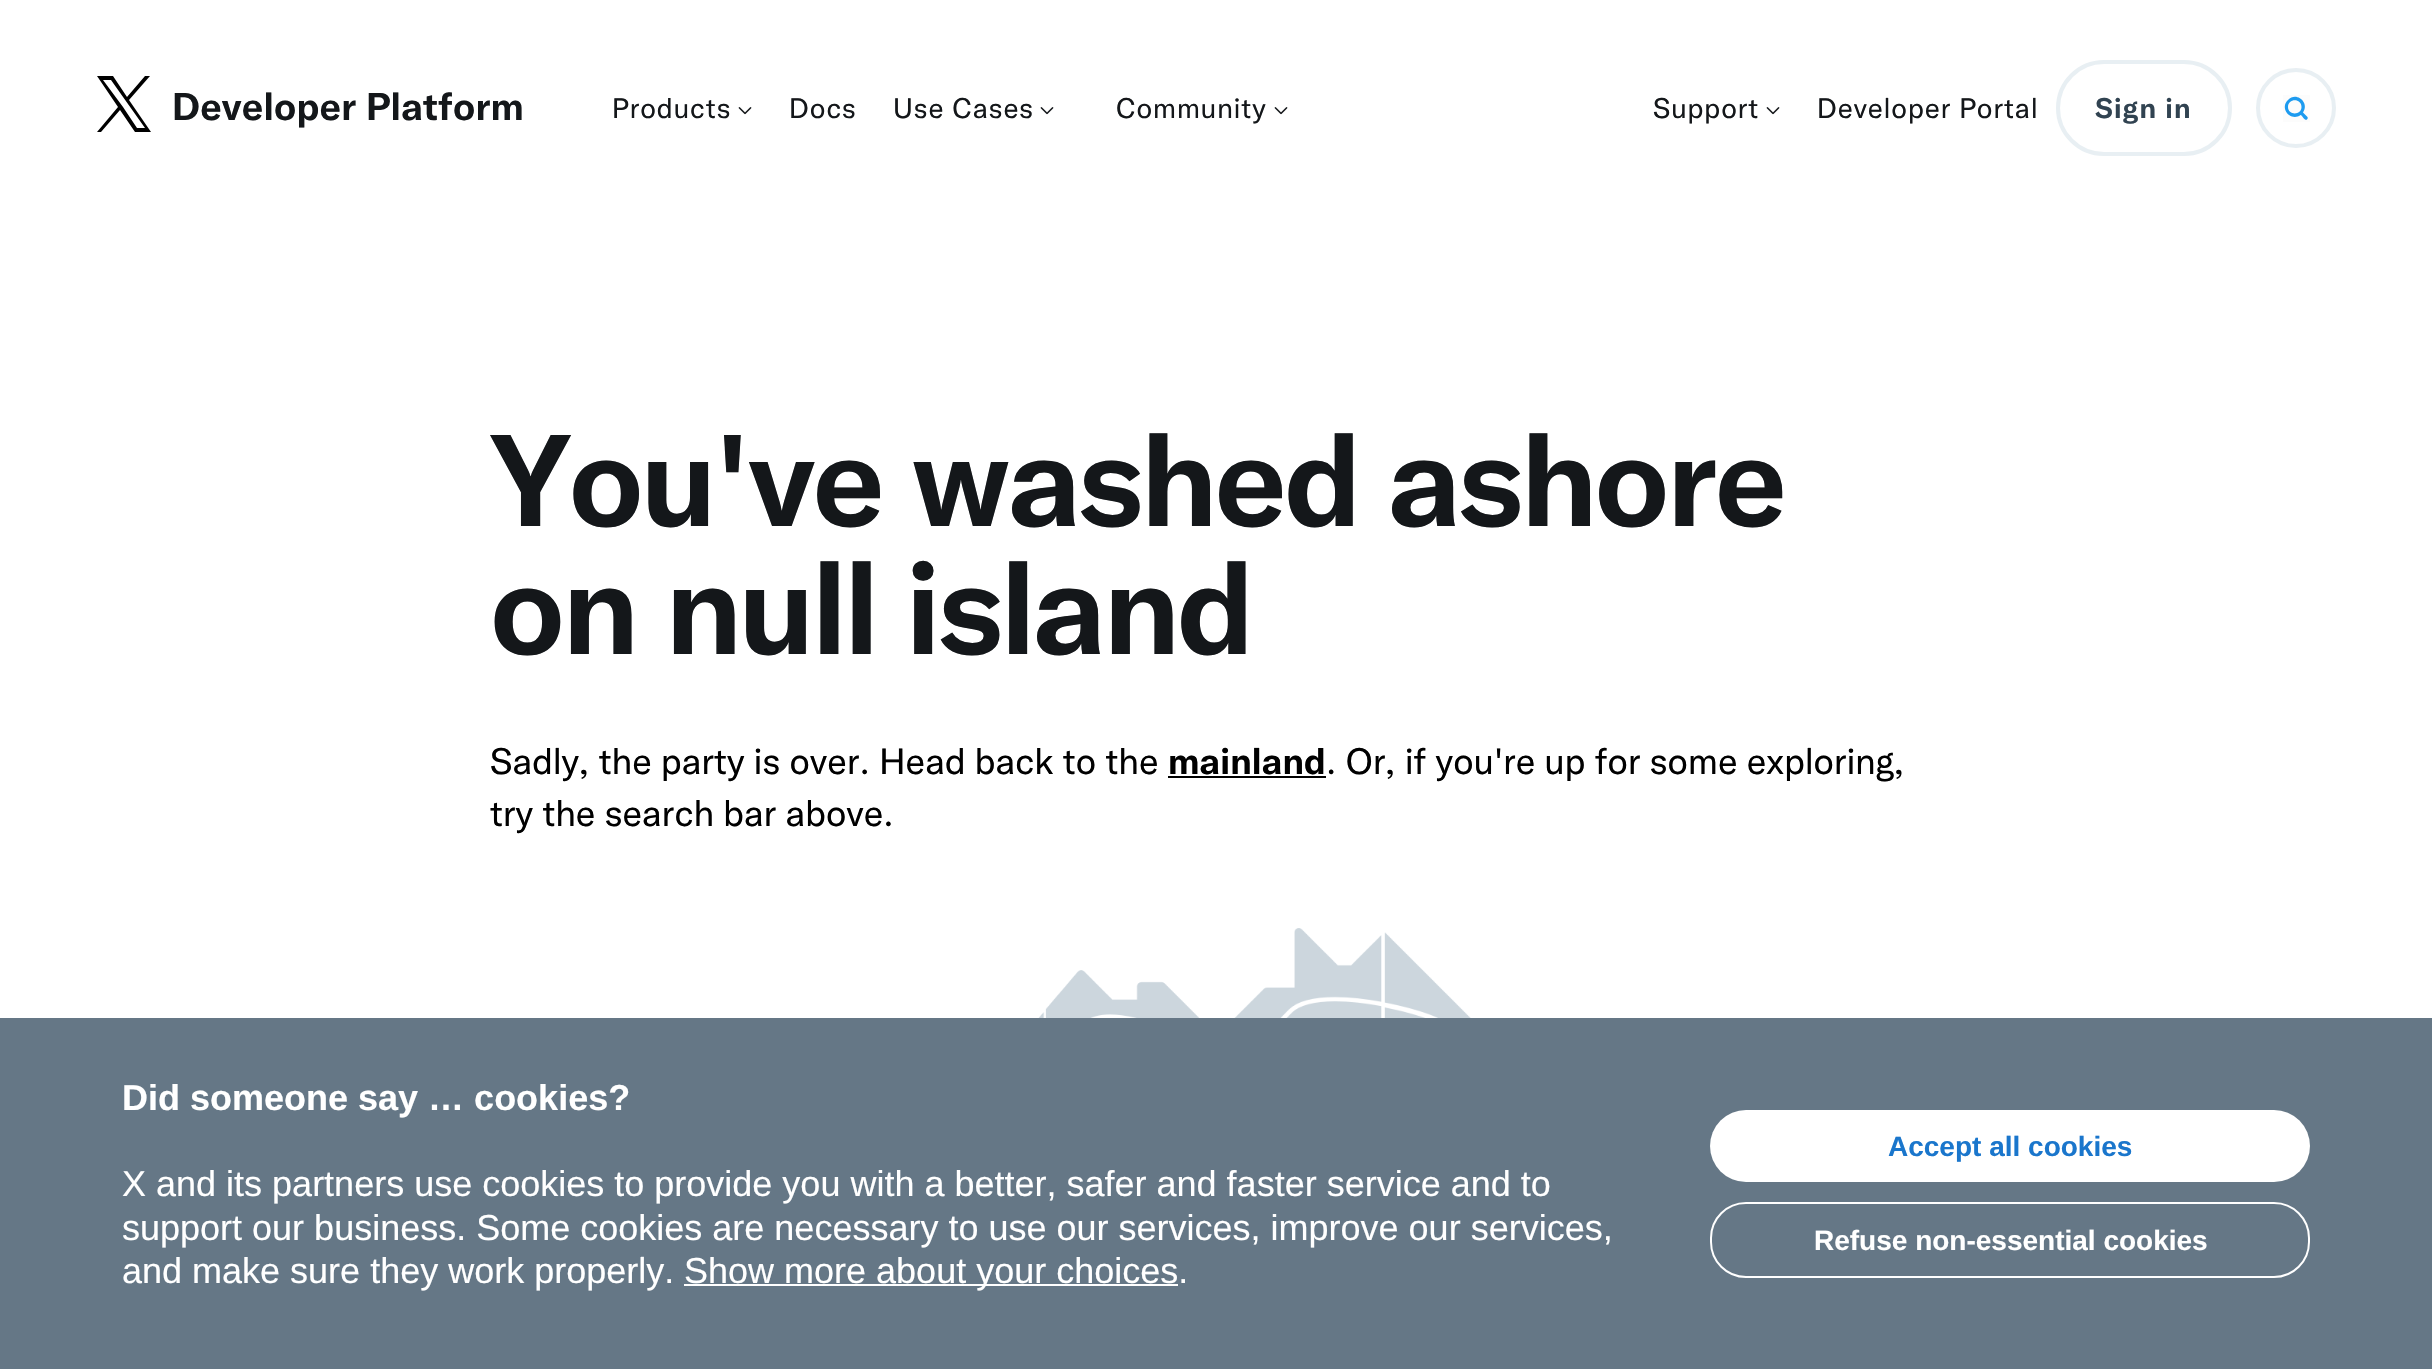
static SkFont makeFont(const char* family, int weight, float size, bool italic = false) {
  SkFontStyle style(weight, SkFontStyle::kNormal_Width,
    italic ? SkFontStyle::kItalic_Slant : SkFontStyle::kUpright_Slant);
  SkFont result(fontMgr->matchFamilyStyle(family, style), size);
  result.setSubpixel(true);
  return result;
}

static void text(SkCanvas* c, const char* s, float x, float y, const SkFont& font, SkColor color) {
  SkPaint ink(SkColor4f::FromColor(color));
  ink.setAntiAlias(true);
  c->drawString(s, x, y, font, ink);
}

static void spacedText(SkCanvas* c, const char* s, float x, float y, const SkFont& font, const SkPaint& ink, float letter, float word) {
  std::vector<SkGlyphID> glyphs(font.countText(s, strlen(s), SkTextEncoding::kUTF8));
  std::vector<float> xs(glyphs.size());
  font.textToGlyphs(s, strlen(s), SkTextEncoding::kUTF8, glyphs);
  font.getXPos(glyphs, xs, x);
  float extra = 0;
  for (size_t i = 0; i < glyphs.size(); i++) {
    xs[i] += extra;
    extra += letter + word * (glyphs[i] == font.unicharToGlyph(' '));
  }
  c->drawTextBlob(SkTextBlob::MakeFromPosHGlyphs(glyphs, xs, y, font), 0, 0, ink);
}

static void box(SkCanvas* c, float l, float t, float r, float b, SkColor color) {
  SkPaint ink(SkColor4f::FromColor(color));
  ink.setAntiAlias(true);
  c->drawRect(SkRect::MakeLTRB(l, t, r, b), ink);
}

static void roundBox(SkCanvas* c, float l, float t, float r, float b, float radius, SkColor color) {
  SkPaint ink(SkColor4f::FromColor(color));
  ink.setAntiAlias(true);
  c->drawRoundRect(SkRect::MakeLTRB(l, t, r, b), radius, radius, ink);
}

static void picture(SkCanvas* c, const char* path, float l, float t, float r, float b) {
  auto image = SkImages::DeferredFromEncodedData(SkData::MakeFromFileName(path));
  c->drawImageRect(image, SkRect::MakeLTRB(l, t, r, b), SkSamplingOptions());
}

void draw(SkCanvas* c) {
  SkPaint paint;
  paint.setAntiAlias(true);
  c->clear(0xffffffff);
  paint.setColor(0xff000000);
  c->drawPath(SkPathBuilder().moveTo(129, 100).lineTo(150, 76).lineTo(145, 76).lineTo(127, 97).lineTo(113, 76).lineTo(97, 76).lineTo(118, 107).lineTo(97, 132).lineTo(101, 132).lineTo(120, 110).lineTo(135, 132).lineTo(151, 132).close().moveTo(123, 107).lineTo(103, 80).lineTo(111, 80).lineTo(145, 128).lineTo(137, 128).close().detach(), paint);
  SkFont face1 = makeFont("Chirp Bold", 700, 38);
  paint.setColor(0xff14171a);
  spacedText(c, "Developer Platform", 172, 120, face1, paint, 0.25f, 0);
  SkFont face2 = makeFont("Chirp", 400, 27.75f);
  spacedText(c, "Products", 612, 118, face2, paint, 1, 0);
  picture(c, "img_01.png", 738, 107, 752, 115);
  spacedText(c, "Docs", 789, 118, face2, paint, 1, 0);
  spacedText(c, "Use Cases", 893, 118, face2, paint, 1, 0);
  picture(c, "img_01.png", 1040, 107, 1054, 115);
  spacedText(c, "Community", 1116, 118, face2, paint, 1, 0);
  picture(c, "img_01.png", 1274, 107, 1288, 115);
  spacedText(c, "Support", 1653, 118, face2, paint, 1, 0);
  picture(c, "img_01.png", 1766, 107, 1780, 115);
  spacedText(c, "Developer Portal", 1817, 118, face2, paint, 1, 0);
  paint.setStyle(SkPaint::kStroke_Style);
  paint.setStrokeWidth(4);
  paint.setColor(0xffe8eff3);
  c->drawRoundRect(SkRect::MakeLTRB(2058, 62, 2230, 154), 46, 46, paint);
  SkFont face3 = makeFont("Chirp Bold", 700, 27.75f);
  paint.setStyle(SkPaint::kFill_Style);
  paint.setColor(0xff314351);
  spacedText(c, "Sign in", 2095, 118, face3, paint, 1.25f, 0);
  paint.setStyle(SkPaint::kStroke_Style);
  paint.setColor(0xffe8eff3);
  c->drawCircle(2296, 108, 38, paint);
  box(c, 2283, 95, 2310, 122, 0xfffcfcfc);
  paint.setStyle(SkPaint::kFill_Style);
  paint.setColor(0xff1d9bf0);
  c->drawPath(SkPathBuilder(SkPathFillType::kEvenOdd).moveTo(2303, 112.5f).lineTo(2307.5f, 117).cubicTo(2308, 118, 2307.5f, 119, 2307, 119.5f).cubicTo(2305, 121, 2302.5f, 116.5f, 2301.5f, 115.5f).lineTo(2300.5f, 115).cubicTo(2291, 122, 2279, 108.5f, 2288, 100).cubicTo(2296.5f, 91, 2310, 103, 2303, 112.5f).close().moveTo(2288, 107).cubicTo(2288, 115.5f, 2301.5f, 115.5f, 2301.5f, 107).cubicTo(2301.5f, 98, 2288, 98, 2288, 107).close().detach(), paint);
  SkFont face4 = makeFont("Chirp Bold", 700, 128);
  paint.setColor(0xff14171a);
  spacedText(c, "You've washed ashore", 490, 526, face4, paint, -2.4f, 0);
  spacedText(c, "on null island", 490, 654, face4, paint, -2.4f, 0);
  SkFont face5 = makeFont("Chirp", 400, 36);
  paint.setColor(0xff000000);
  spacedText(c, "Sadly, the party is over. Head back to the", 490, 774, face5, paint, 0.2f, 0);
  SkFont face6 = makeFont("Chirp Bold", 700, 36);
  spacedText(c, "mainland", 1168, 774, face6, paint, 0.2f, 0);
  box(c, 1168, 776, 1326, 778, 0xff000000);
  spacedText(c, ". Or, if you're up for some exploring,", 1326, 774, face5, paint, 0.2f, 0);
  spacedText(c, "try the search bar above.", 490, 826, face5, paint, 0.2f, 0);
  picture(c, "img_02.png", 1038, 928, 1471, 1018);
  box(c, 0, 1018, 2432, 1369, 0xff657786);
  SkFont face7 = makeFont("Liberation Sans", 700, 36);
  text(c, "Did someone say … cookies?", 122, 1110, face7, 0xffffffff);
  SkFont face8 = makeFont("Liberation Sans", 400, 36);
  text(c, "X and its partners use cookies to provide you with a better, safer and faster service and to", 122, 1196, face8, 0xffffffff);
  text(c, "support our business. Some cookies are necessary to use our services, improve our services,", 122, 1240, face8, 0xffffffff);
  text(c, "and make sure they work properly.", 122, 1283, face8, 0xffffffff);
  box(c, 684, 1284, 1178, 1286, 0xffffffff);
  text(c, "Show more about your choices.", 684, 1283, face8, 0xffffffff);
  roundBox(c, 1710, 1110, 2310, 1182, 36, 0xffffffff);
  SkFont face9 = makeFont("Liberation Sans", 700, 28);
  text(c, "Accept all cookies", 1888, 1156, face9, 0xff1a76cc);
  paint.setStyle(SkPaint::kStroke_Style);
  paint.setStrokeWidth(2);
  paint.setColor(0xffffffff);
  c->drawRoundRect(SkRect::MakeLTRB(1711, 1203, 2309, 1277), 35, 35, paint);
  text(c, "Refuse non-essential cookies", 1814, 1250, face9, 0xffffffff);
}
